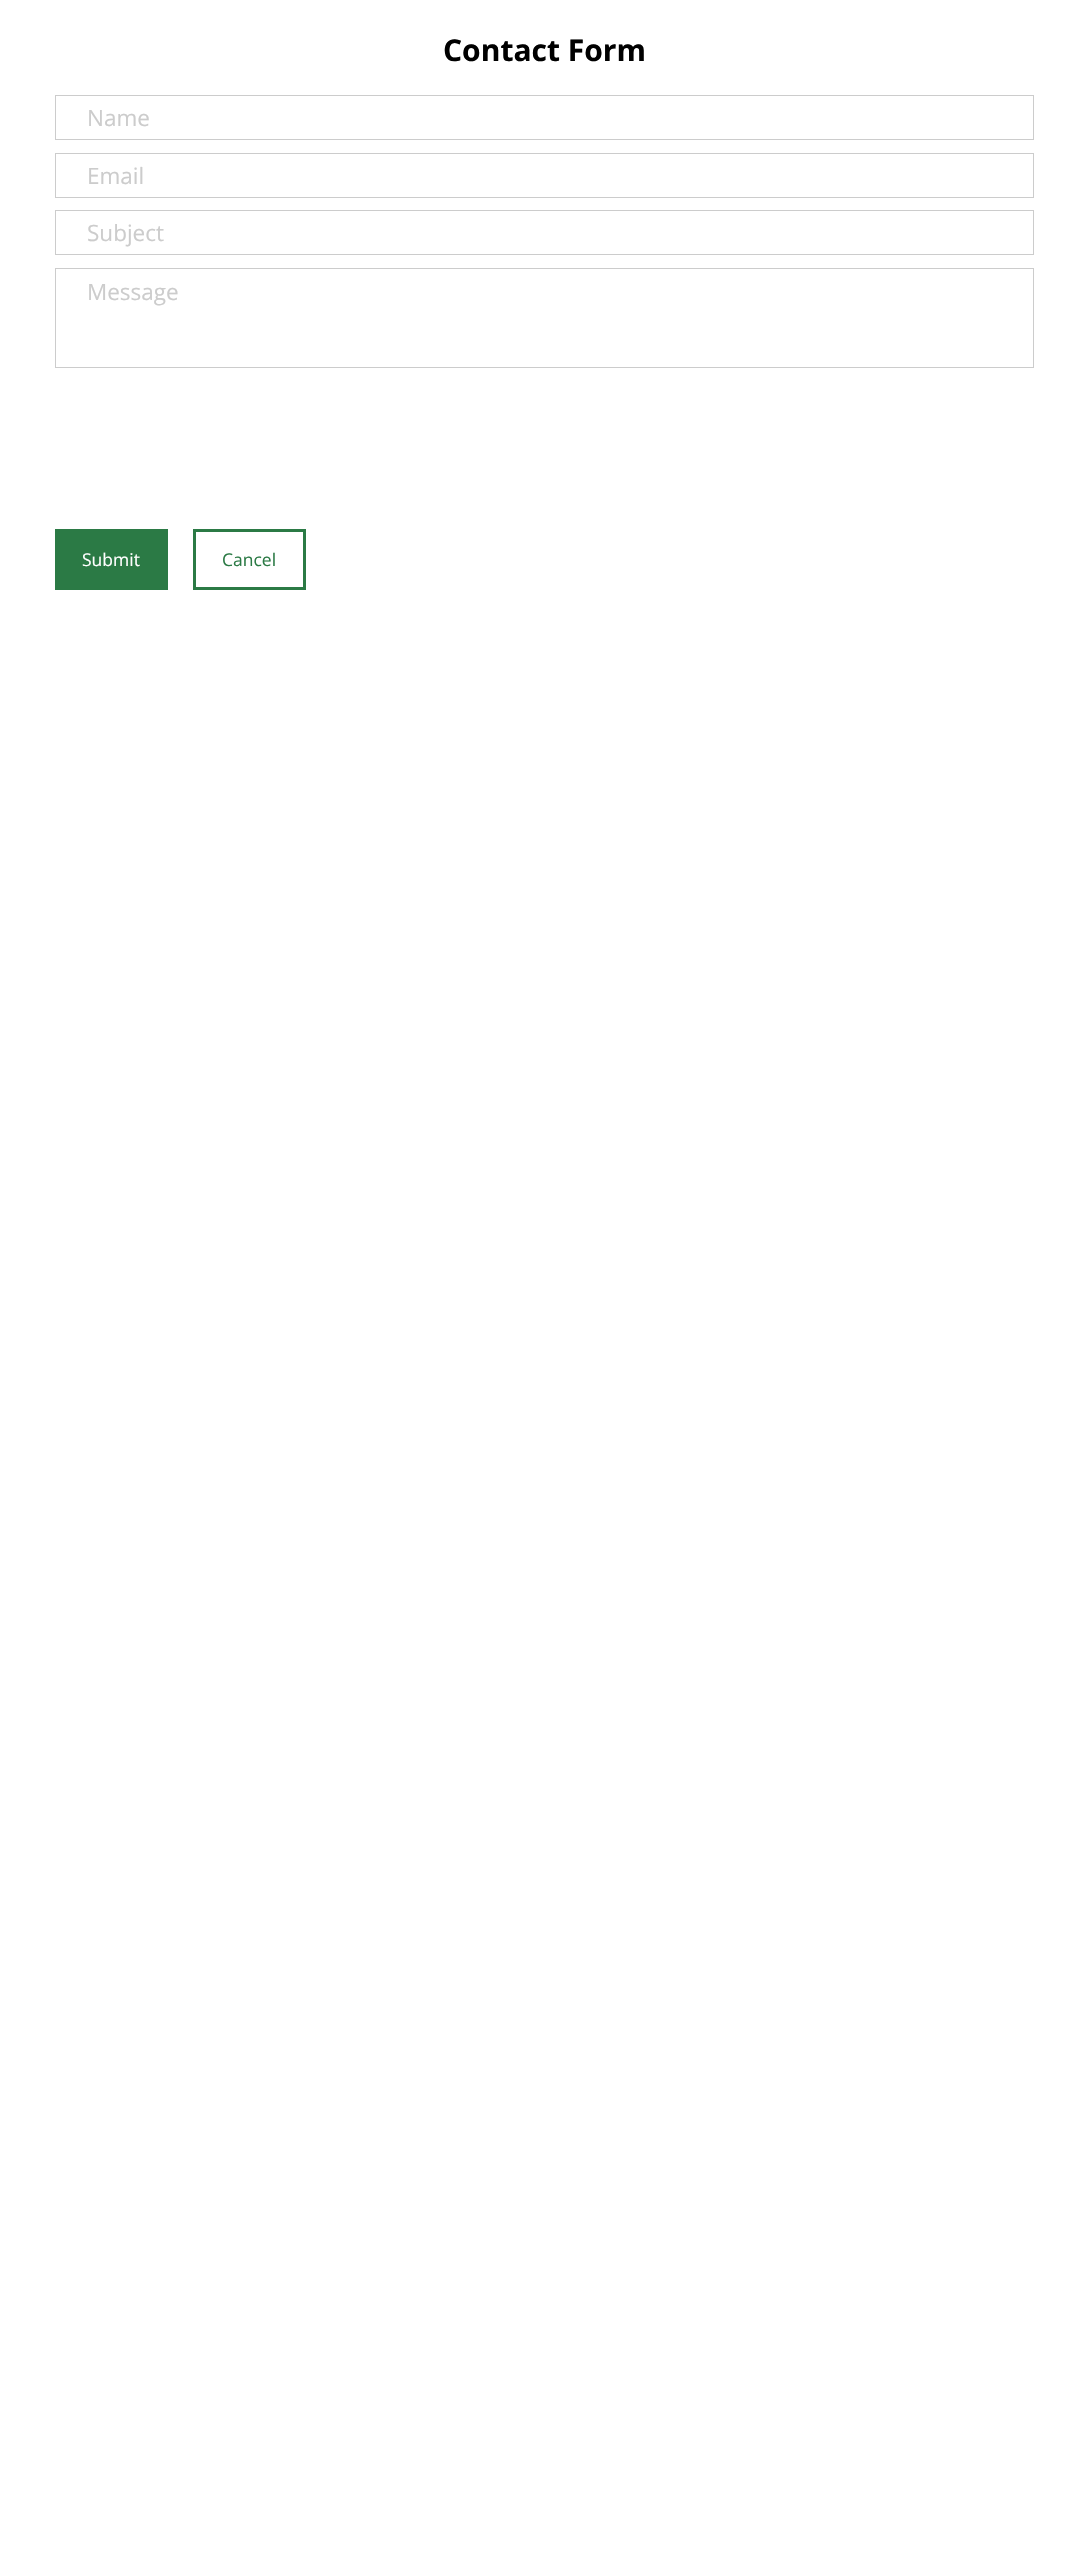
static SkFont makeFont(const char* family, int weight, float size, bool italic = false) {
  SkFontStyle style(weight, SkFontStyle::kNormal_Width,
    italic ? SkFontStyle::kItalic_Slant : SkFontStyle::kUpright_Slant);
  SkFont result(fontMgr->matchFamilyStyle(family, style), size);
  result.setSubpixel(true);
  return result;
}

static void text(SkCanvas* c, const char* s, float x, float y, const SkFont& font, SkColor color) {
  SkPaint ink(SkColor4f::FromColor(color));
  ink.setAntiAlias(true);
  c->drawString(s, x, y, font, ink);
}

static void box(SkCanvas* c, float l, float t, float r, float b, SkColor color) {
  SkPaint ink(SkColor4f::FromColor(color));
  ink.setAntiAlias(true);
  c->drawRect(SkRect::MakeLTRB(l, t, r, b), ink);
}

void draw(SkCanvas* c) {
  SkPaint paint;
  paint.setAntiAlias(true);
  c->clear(0xffffffff);
  SkFont face1 = makeFont("Open Sans", 700, 30);
  text(c, "Contact Form", 443, 61, face1, 0xff000000);
  paint.setStyle(SkPaint::kStroke_Style);
  paint.setStrokeWidth(1);
  paint.setColor(0xffcccccc);
  c->drawRect(SkRect::MakeLTRB(55.5f, 95.5f, 1033.5f, 139.5f), paint);
  SkFont face2 = makeFont("Open Sans", 400, 22.5f);
  text(c, "Name", 87, 126, face2, 0xffcccccc);
  c->drawRect(SkRect::MakeLTRB(55.5f, 153.5f, 1033.5f, 197.5f), paint);
  text(c, "Email", 87, 184, face2, 0xffcccccc);
  c->drawRect(SkRect::MakeLTRB(55.5f, 210.5f, 1033.5f, 254.5f), paint);
  text(c, "Subject", 87, 241, face2, 0xffcccccc);
  c->drawRect(SkRect::MakeLTRB(55.5f, 268.5f, 1033.5f, 367.5f), paint);
  text(c, "Message", 87, 300, face2, 0xffcccccc);
  box(c, 55, 529, 168, 590, 0xff2b7a45);
  SkFont face3 = makeFont("Open Sans", 400, 17.5f);
  text(c, "Submit", 82, 566, face3, 0xffffffff);
  paint.setStrokeWidth(3);
  paint.setColor(0xff2b7a45);
  c->drawRect(SkRect::MakeLTRB(194.5f, 530.5f, 304.5f, 588.5f), paint);
  text(c, "Cancel", 222, 566, face3, 0xff2b7a45);
}
